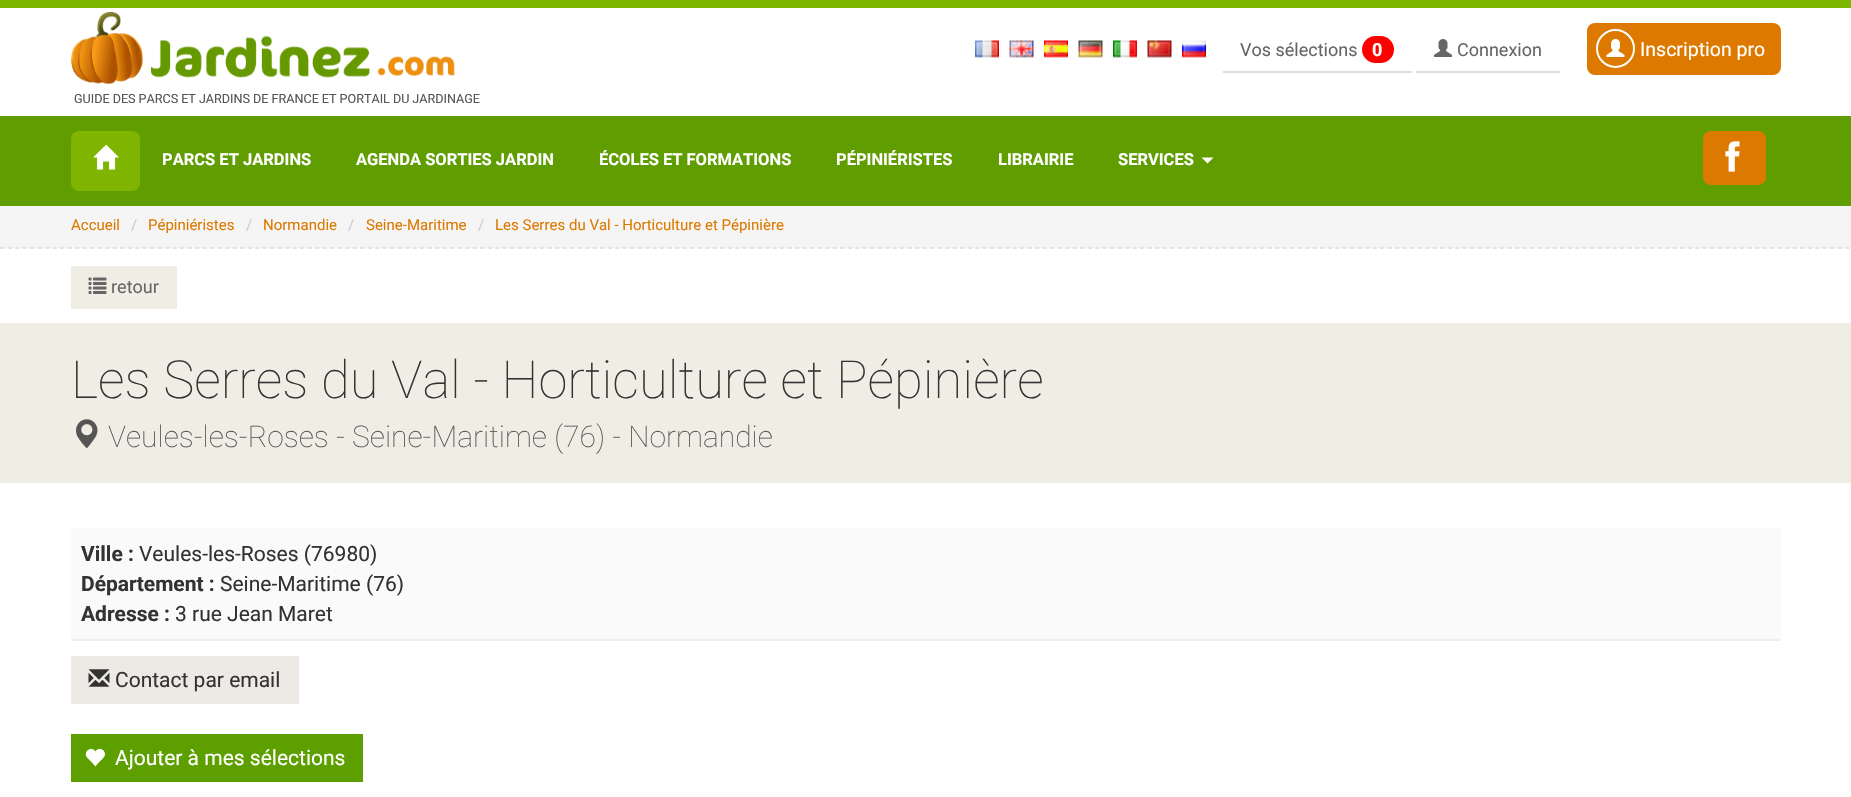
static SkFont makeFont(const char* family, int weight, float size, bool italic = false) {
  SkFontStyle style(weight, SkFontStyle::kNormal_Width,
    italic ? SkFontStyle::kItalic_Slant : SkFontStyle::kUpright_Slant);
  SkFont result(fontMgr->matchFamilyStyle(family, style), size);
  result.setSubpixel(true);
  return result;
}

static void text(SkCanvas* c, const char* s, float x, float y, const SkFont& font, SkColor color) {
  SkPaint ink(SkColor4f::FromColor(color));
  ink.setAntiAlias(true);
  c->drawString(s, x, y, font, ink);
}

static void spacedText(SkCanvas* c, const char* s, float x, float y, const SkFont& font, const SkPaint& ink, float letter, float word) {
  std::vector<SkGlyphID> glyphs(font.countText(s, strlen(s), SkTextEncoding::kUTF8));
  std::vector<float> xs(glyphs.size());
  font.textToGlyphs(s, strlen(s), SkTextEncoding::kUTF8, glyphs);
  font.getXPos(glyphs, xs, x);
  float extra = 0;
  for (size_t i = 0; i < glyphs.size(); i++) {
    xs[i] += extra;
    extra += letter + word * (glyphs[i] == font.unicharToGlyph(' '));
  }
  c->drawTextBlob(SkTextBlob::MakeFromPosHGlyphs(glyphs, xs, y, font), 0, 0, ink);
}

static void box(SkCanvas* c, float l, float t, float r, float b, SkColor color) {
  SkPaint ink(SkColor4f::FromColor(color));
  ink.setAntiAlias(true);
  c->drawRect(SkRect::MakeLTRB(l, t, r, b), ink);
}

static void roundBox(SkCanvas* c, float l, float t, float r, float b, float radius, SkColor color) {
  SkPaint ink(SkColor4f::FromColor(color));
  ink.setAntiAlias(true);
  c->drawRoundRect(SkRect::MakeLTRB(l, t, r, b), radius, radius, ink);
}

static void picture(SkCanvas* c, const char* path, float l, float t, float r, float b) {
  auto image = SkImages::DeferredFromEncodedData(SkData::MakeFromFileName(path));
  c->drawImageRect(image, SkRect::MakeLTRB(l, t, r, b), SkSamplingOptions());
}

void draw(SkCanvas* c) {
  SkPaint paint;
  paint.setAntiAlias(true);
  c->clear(0xffffffff);
  box(c, 0, 0, 1851, 8, 0xff7eb700);
  picture(c, "img_01.png", 975, 40, 999, 58);
  picture(c, "img_02.png", 1009, 40, 1034, 58);
  picture(c, "img_03.png", 1044, 40, 1068, 58);
  picture(c, "img_04.png", 1078, 40, 1103, 58);
  picture(c, "img_05.png", 1113, 40, 1137, 58);
  picture(c, "img_06.png", 1147, 40, 1172, 58);
  picture(c, "img_07.png", 1182, 40, 1206, 58);
  box(c, 1223, 71, 1412, 73, 0xffdddddd);
  SkFont face1 = makeFont("Roboto", 400, 18);
  text(c, "Vos sélections", 1240, 56, face1, 0xff666666);
  roundBox(c, 1362, 36, 1394, 63, 13.5f, 0xffff0000);
  SkFont face2 = makeFont("Roboto", 700, 18);
  text(c, "0", 1372, 56, face2, 0xffffffff);
  box(c, 1416, 71, 1560, 73, 0xffdddddd);
  picture(c, "img_08.png", 1434, 39, 1452, 57);
  text(c, "Connexion", 1457, 56, face1, 0xff666666);
  roundBox(c, 1587, 23, 1781, 75, 8, 0xffde7900);
  paint.setStyle(SkPaint::kStroke_Style);
  paint.setStrokeWidth(2);
  paint.setColor(0xffffffff);
  c->drawCircle(1615.5f, 48.5f, 18.5f, paint);
  picture(c, "img_09.png", 1606, 39, 1625, 57);
  SkFont face3 = makeFont("Roboto", 400, 19.5f);
  text(c, "Inscription pro", 1640, 56, face3, 0xffffffff);
  picture(c, "img_10.png", 71, 12, 455, 84);
  SkFont face4 = makeFont("Roboto", 400, 12.6f);
  paint.setStyle(SkPaint::kFill_Style);
  paint.setColor(0xff555555);
  spacedText(c, "GUIDE DES PARCS ET JARDINS DE FRANCE ET PORTAIL DU JARDINAGE", 74, 103, face4, paint, 0, -0.1f);
  box(c, 0, 116, 1851, 206, 0xff609d00);
  roundBox(c, 71, 131, 140, 191, 8, 0xff7fb500);
  picture(c, "img_11.png", 93, 144, 119, 170);
  SkFont face5 = makeFont("Roboto", 700, 16.5f);
  text(c, "PARCS ET JARDINS", 162, 165, face5, 0xffffffff);
  text(c, "AGENDA SORTIES JARDIN", 356, 165, face5, 0xffffffff);
  text(c, "ÉCOLES ET FORMATIONS", 599, 165, face5, 0xffffffff);
  text(c, "PÉPINIÉRISTES", 836, 165, face5, 0xffffffff);
  text(c, "LIBRAIRIE", 998, 165, face5, 0xffffffff);
  text(c, "SERVICES", 1118, 165, face5, 0xffffffff);
  paint.setColor(0xffffffff);
  c->drawPath(SkPathBuilder().moveTo(1201.5f, 157.5f).lineTo(1213.5f, 157.5f).lineTo(1207.5f, 163.5f).close().detach(), paint);
  roundBox(c, 1703, 131, 1766, 185, 8, 0xffdc7900);
  picture(c, "img_12.png", 1725, 141, 1740, 172);
  box(c, 0, 206, 1851, 248, 0xfff5f5f5);
  SkFont face6 = makeFont("Roboto", 400, 15);
  text(c, "Accueil", 71, 230, face6, 0xffde7900);
  text(c, "/", 131, 230, face6, 0xffcccccc);
  text(c, "Pépiniéristes", 148, 230, face6, 0xffde7900);
  text(c, "/", 246, 230, face6, 0xffcccccc);
  text(c, "Normandie", 263, 230, face6, 0xffde7900);
  text(c, "/", 348, 230, face6, 0xffcccccc);
  text(c, "Seine-Maritime", 366, 230, face6, 0xffde7900);
  text(c, "/", 478, 230, face6, 0xffcccccc);
  text(c, "Les Serres du Val - Horticulture et Pépinière", 495, 230, face6, 0xffde7900);
  paint.setStyle(SkPaint::kStroke_Style);
  paint.setStrokeWidth(1.5f);
  paint.setColor(0xffdddddd);
  paint.setPathEffect(SkDashPathEffect::Make({{4.5f, 3}}, 0));
  c->drawPath(SkPathBuilder().moveTo(0, 248).lineTo(1851, 248).detach(), paint);
  paint.setPathEffect(nullptr);
  box(c, 71, 266, 177, 309, 0xfff0ede5);
  picture(c, "img_13.png", 88, 277, 107, 294);
  text(c, "retour", 111, 293, face1, 0xff666666);
  box(c, 0, 323, 1851, 483, 0xfff0ede5);
  SkFont face7 = makeFont("Roboto", 100, 52.5f);
  text(c, "Les Serres du Val - Horticulture et Pépinière", 71, 398, face7, 0xff333333);
  picture(c, "img_14.png", 76, 419, 98, 449);
  SkFont face8 = makeFont("Roboto", 100, 30);
  text(c, "Veules-les-Roses - Seine-Maritime (76) - Normandie", 108, 447, face8, 0xff555555);
  box(c, 71, 528, 1781, 639, 0xfffafafa);
  box(c, 71, 639, 1781, 641, 0xffefefef);
  SkFont face9 = makeFont("Roboto", 700, 21);
  text(c, "Ville :", 81, 561, face9, 0xff333333);
  SkFont face10 = makeFont("Roboto", 400, 21);
  text(c, "Veules-les-Roses (76980)", 139, 561, face10, 0xff333333);
  text(c, "Département :", 81, 591, face9, 0xff333333);
  text(c, "Seine-Maritime (76)", 220, 591, face10, 0xff333333);
  text(c, "Adresse :", 81, 621, face9, 0xff333333);
  text(c, "3 rue Jean Maret", 175, 621, face10, 0xff333333);
  box(c, 71, 656, 299, 704, 0xffedeae6);
  picture(c, "img_15.png", 88, 669, 110, 687);
  text(c, "Contact par email", 115, 687, face10, 0xff333333);
  box(c, 71, 734, 363, 782, 0xff5e9f00);
  picture(c, "img_16.png", 85, 748, 105, 767);
  text(c, "Ajouter à mes sélections", 115, 765, face10, 0xffffffff);
}
